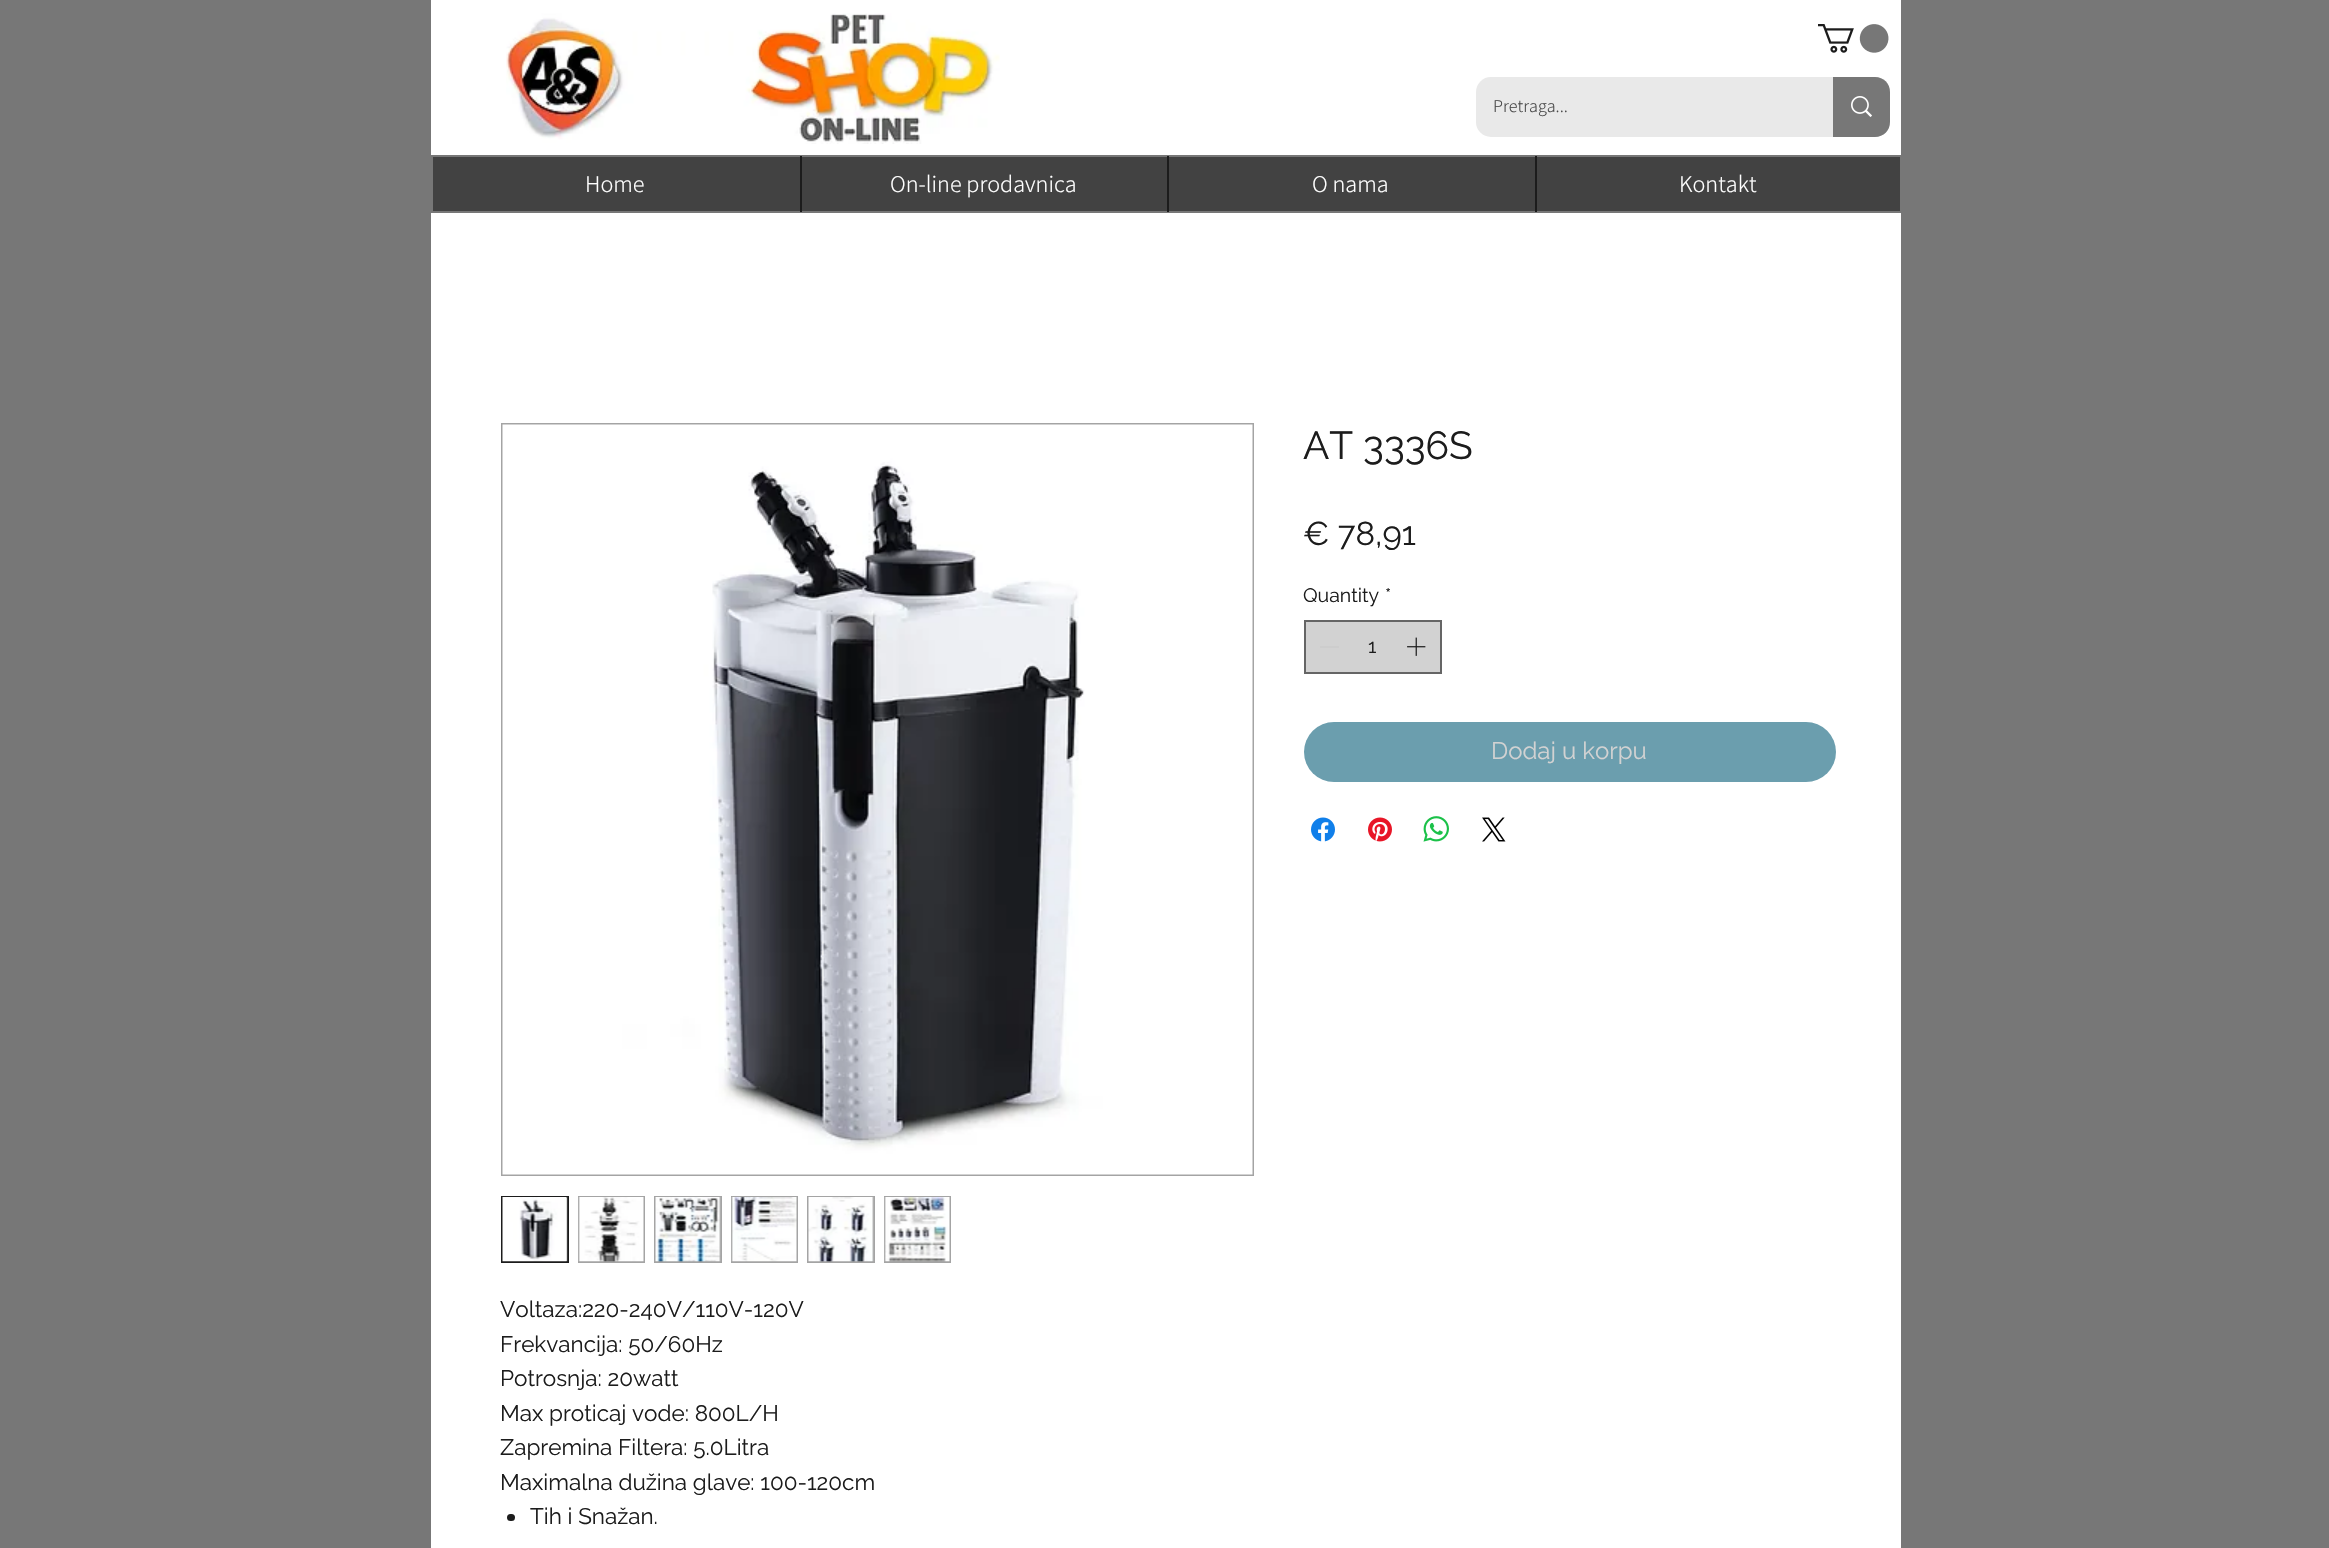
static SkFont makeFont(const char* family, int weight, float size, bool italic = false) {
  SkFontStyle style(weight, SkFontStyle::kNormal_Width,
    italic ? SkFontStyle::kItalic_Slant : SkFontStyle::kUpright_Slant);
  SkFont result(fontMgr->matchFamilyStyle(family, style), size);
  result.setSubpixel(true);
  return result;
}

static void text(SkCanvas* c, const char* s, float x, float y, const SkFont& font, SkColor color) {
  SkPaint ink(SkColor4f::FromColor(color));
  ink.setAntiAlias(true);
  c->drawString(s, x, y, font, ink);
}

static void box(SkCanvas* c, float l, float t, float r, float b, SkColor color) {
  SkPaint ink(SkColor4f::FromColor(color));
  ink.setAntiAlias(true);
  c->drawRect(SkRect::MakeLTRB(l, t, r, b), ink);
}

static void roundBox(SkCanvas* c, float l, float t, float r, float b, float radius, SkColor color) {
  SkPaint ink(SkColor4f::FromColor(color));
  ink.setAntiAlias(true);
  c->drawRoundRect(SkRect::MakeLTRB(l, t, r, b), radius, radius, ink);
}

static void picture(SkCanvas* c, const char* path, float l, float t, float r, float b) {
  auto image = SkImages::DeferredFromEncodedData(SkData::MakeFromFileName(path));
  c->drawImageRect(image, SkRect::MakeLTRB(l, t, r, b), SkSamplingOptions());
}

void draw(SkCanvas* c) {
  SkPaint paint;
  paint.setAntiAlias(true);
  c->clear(0xff777777);
  box(c, 431, 0, 1901, 155, 0xffffffff);
  picture(c, "img_01.png", 506, 13, 1000, 144);
  picture(c, "img_02.png", 1818, 24, 1889, 53);
  roundBox(c, 1476, 77, 1890, 137, 15, 0xffe9e9e9);
  SkFont face1 = makeFont("Assistant", 300, 18);
  text(c, "Pretraga...", 1493, 112, face1, 0xff494949);
  paint.setColor(0xff777777);
  c->drawPath(SkPathBuilder().moveTo(1833, 77).lineTo(1875, 77).cubicTo(1883.5f, 77, 1890, 83.5f, 1890, 92).lineTo(1890, 122).cubicTo(1890, 130.5f, 1883.5f, 137, 1875, 137).lineTo(1833, 137).close().detach(), paint);
  picture(c, "img_03.png", 1851, 96, 1872, 117);
  box(c, 433, 157, 1900, 211, 0xff424242);
  SkFont face2 = makeFont("Assistant", 300, 24);
  text(c, "Home", 585, 192, face2, 0xffffffff);
  box(c, 800, 156, 802, 212, 0xff1c1c1c);
  text(c, "On-line prodavnica", 890, 192, face2, 0xffffffff);
  box(c, 1167, 156, 1169, 212, 0xff1c1c1c);
  text(c, "O nama", 1312, 192, face2, 0xffffffff);
  box(c, 1535, 156, 1537, 212, 0xff1c1c1c);
  text(c, "Kontakt", 1679, 192, face2, 0xffffffff);
  box(c, 431, 213, 1901, 1548, 0xffffffff);
  SkFont face3 = makeFont("Raleway", 400, 39);
  text(c, "AT 3336S", 1303, 459, face3, 0xff1c1c1c);
  SkFont face4 = makeFont("Raleway", 400, 33);
  text(c, "€ 78,91", 1303, 545, face4, 0xff1c1c1c);
  SkFont face5 = makeFont("Raleway", 400, 19.5f);
  text(c, "Quantity", 1303, 602, face5, 0xff1c1c1c);
  text(c, "*", 1385, 602, face5, 0xff1c1c1c);
  paint.setColor(0xffd2d2d2);
  c->drawRect(SkRect::MakeLTRB(1305, 621, 1441, 673), paint);
  paint.setStyle(SkPaint::kStroke_Style);
  paint.setStrokeWidth(2);
  paint.setColor(0xff656565);
  c->drawRect(SkRect::MakeLTRB(1305, 621, 1441, 673), paint);
  box(c, 1320, 646, 1339, 648, 0xffcdcdcd);
  text(c, "1", 1368, 653, face5, 0xff1c1c1c);
  picture(c, "img_04.png", 1407, 637, 1426, 656);
  roundBox(c, 1304, 722, 1836, 782, 30, 0xff6b9eae);
  SkFont face6 = makeFont("Raleway", 400, 24);
  text(c, "Dodaj u korpu", 1491, 759, face6, 0xffd2d2d2);
  picture(c, "img_05.png", 1311, 817, 1335, 842);
  picture(c, "img_06.png", 1368, 817, 1392, 842);
  picture(c, "img_07.png", 1423, 816, 1449, 842);
  picture(c, "img_08.png", 1482, 817, 1506, 842);
  paint.setColor(0xffa4a4a4);
  c->drawRect(SkRect::MakeLTRB(502, 424, 1253, 1175), paint);
  picture(c, "img_09.png", 502, 424, 1253, 1175);
  box(c, 566, 1198, 567, 1261, 0xffa4a4a4);
  paint.setColor(0xff1c1c1c);
  c->drawRect(SkRect::MakeLTRB(502, 1197, 568, 1262), paint);
  picture(c, "img_10.png", 502, 1197, 568, 1262);
  box(c, 578, 1196, 645, 1263, 0xffa4a4a4);
  picture(c, "img_11.png", 578, 1197, 644, 1262);
  box(c, 654, 1196, 722, 1263, 0xffa4a4a4);
  picture(c, "img_12.png", 655, 1197, 721, 1262);
  box(c, 731, 1196, 798, 1263, 0xffa4a4a4);
  picture(c, "img_13.png", 731, 1197, 797, 1262);
  box(c, 807, 1196, 875, 1263, 0xffa4a4a4);
  picture(c, "img_14.png", 808, 1197, 874, 1262);
  box(c, 884, 1196, 951, 1263, 0xffa4a4a4);
  picture(c, "img_15.png", 884, 1197, 950, 1262);
  SkFont face7 = makeFont("Raleway", 400, 22.5f);
  text(c, "Voltaza:220-240V/110V-120V", 500, 1317, face7, 0xff1c1c1c);
  text(c, "Frekvancija: 50/60Hz", 500, 1352, face7, 0xff1c1c1c);
  text(c, "Potrosnja: 20watt", 500, 1386, face7, 0xff1c1c1c);
  text(c, "Max proticaj vode: 800L/H", 500, 1421, face7, 0xff1c1c1c);
  text(c, "Zapremina Filtera: 5.0Litra", 500, 1455, face7, 0xff1c1c1c);
  text(c, "Maximalna dužina glave: 100-120cm", 500, 1490, face7, 0xff1c1c1c);
  roundBox(c, 507, 1514, 515, 1521, 3.5f, 0xff1c1c1c);
  text(c, "Tih i Snažan.", 530, 1524, face7, 0xff1c1c1c);
}
